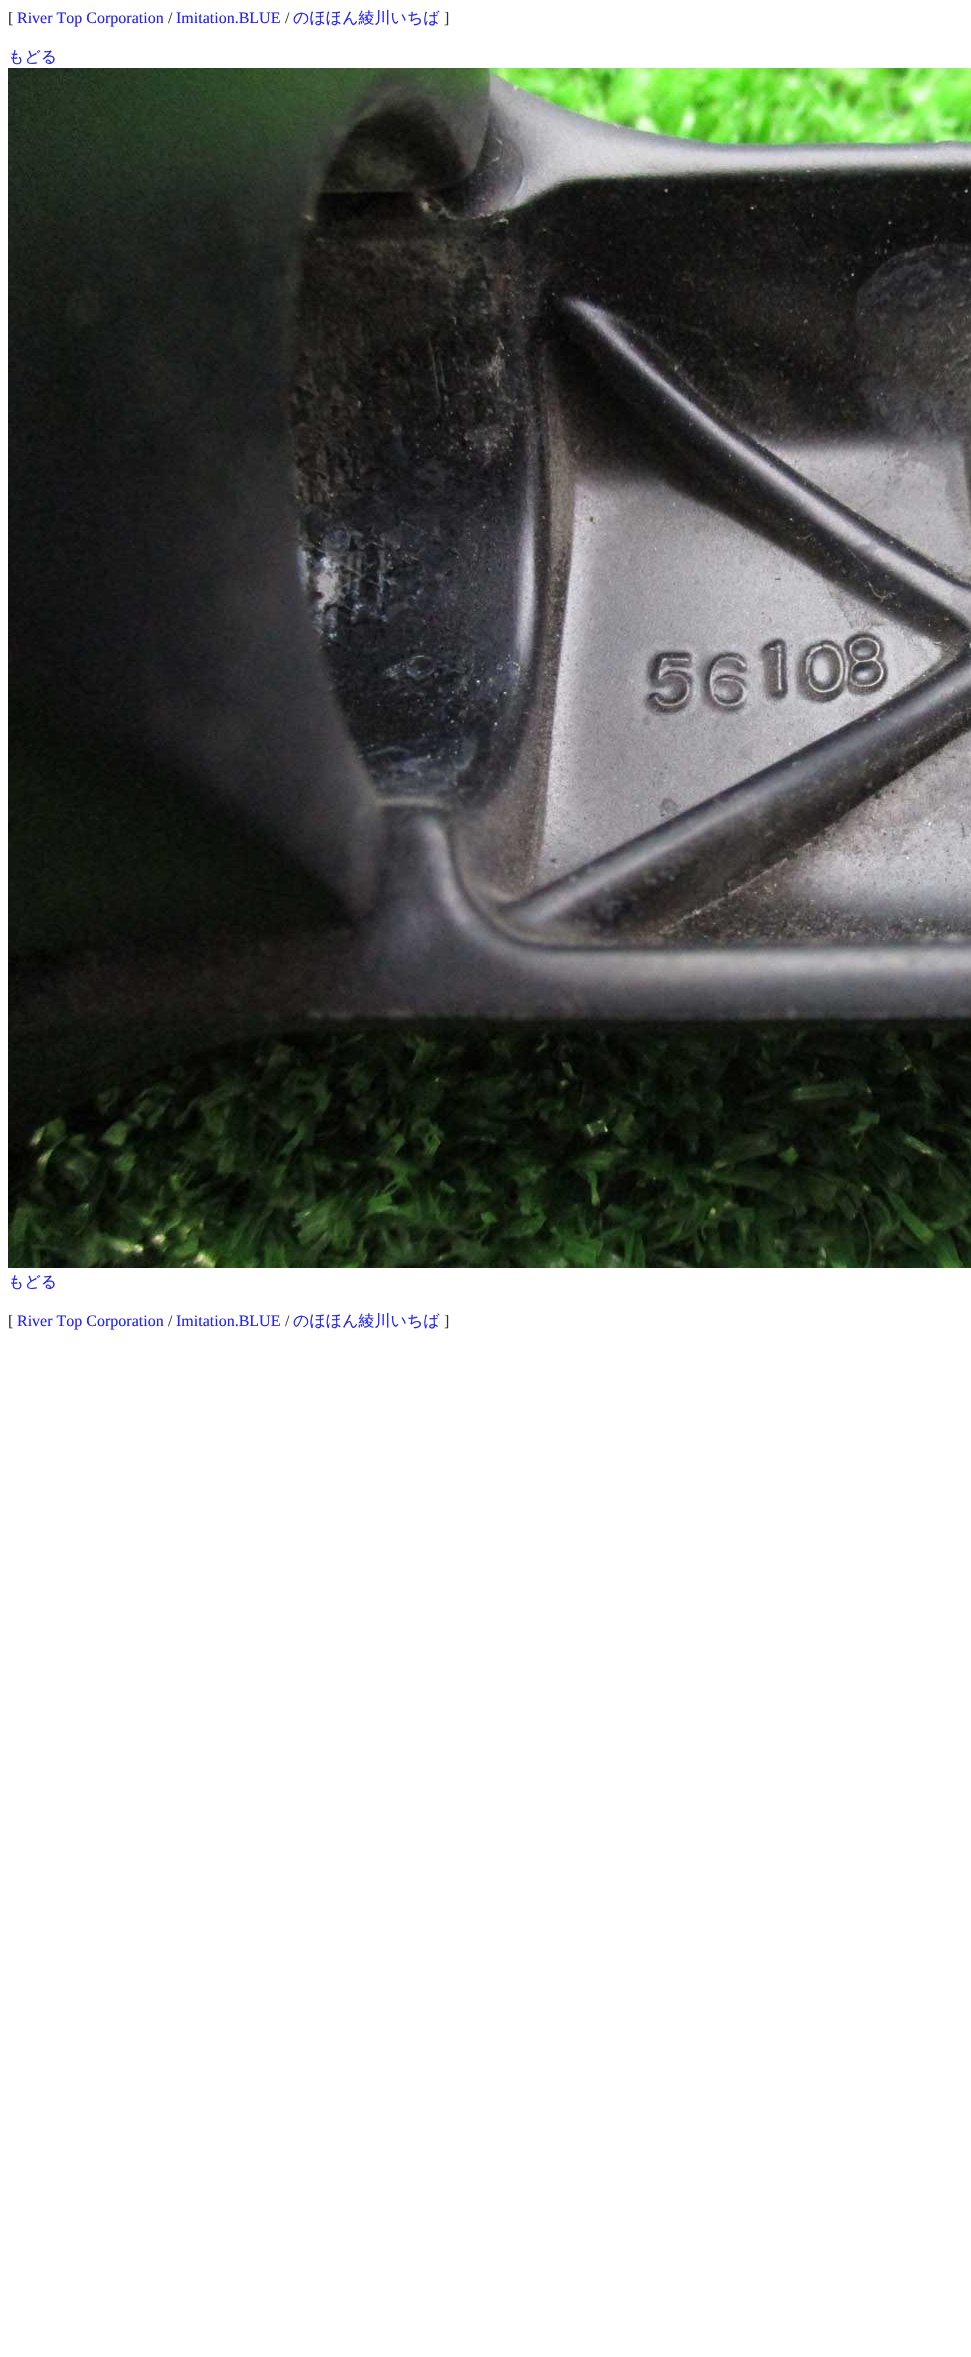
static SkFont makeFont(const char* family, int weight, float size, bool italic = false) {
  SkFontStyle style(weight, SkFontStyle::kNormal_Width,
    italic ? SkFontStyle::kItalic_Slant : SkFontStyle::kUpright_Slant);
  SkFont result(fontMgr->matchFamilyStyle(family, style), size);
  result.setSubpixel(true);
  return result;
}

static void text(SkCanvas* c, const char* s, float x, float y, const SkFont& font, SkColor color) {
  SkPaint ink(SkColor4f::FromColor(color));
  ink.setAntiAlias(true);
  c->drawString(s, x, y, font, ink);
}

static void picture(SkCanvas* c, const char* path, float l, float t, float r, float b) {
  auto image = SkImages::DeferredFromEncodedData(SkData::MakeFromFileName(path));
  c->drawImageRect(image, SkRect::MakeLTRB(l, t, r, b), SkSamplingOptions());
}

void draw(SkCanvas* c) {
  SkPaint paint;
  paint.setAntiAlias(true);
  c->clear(0xffffffff);
  SkFont face1 = makeFont("Liberation Serif", 400, 16);
  text(c, "[", 8, 23, face1, 0xff333333);
  text(c, "River Top Corporation", 17, 23, face1, 0xff2222ff);
  text(c, "/", 168, 23, face1, 0xff333333);
  text(c, "Imitation.BLUE", 176, 23, face1, 0xff2222ff);
  text(c, "/", 285, 23, face1, 0xff333333);
  SkFont face2 = makeFont("WenQuanYi Zen Hei", 500, 16);
  text(c, "のほほん綾川いちば", 293, 23, face2, 0xff2222ff);
  text(c, "]", 444, 23, face1, 0xff333333);
  text(c, "もどる", 8, 62, face2, 0xff2222ff);
  picture(c, "img_01.png", 8, 68, 971, 1268);
  text(c, "もどる", 8, 1287, face2, 0xff2222ff);
  text(c, "[", 8, 1326, face1, 0xff333333);
  text(c, "River Top Corporation", 17, 1326, face1, 0xff2222ff);
  text(c, "/", 168, 1326, face1, 0xff333333);
  text(c, "Imitation.BLUE", 176, 1326, face1, 0xff2222ff);
  text(c, "/", 285, 1326, face1, 0xff333333);
  text(c, "のほほん綾川いちば", 293, 1326, face2, 0xff2222ff);
  text(c, "]", 444, 1326, face1, 0xff333333);
}
